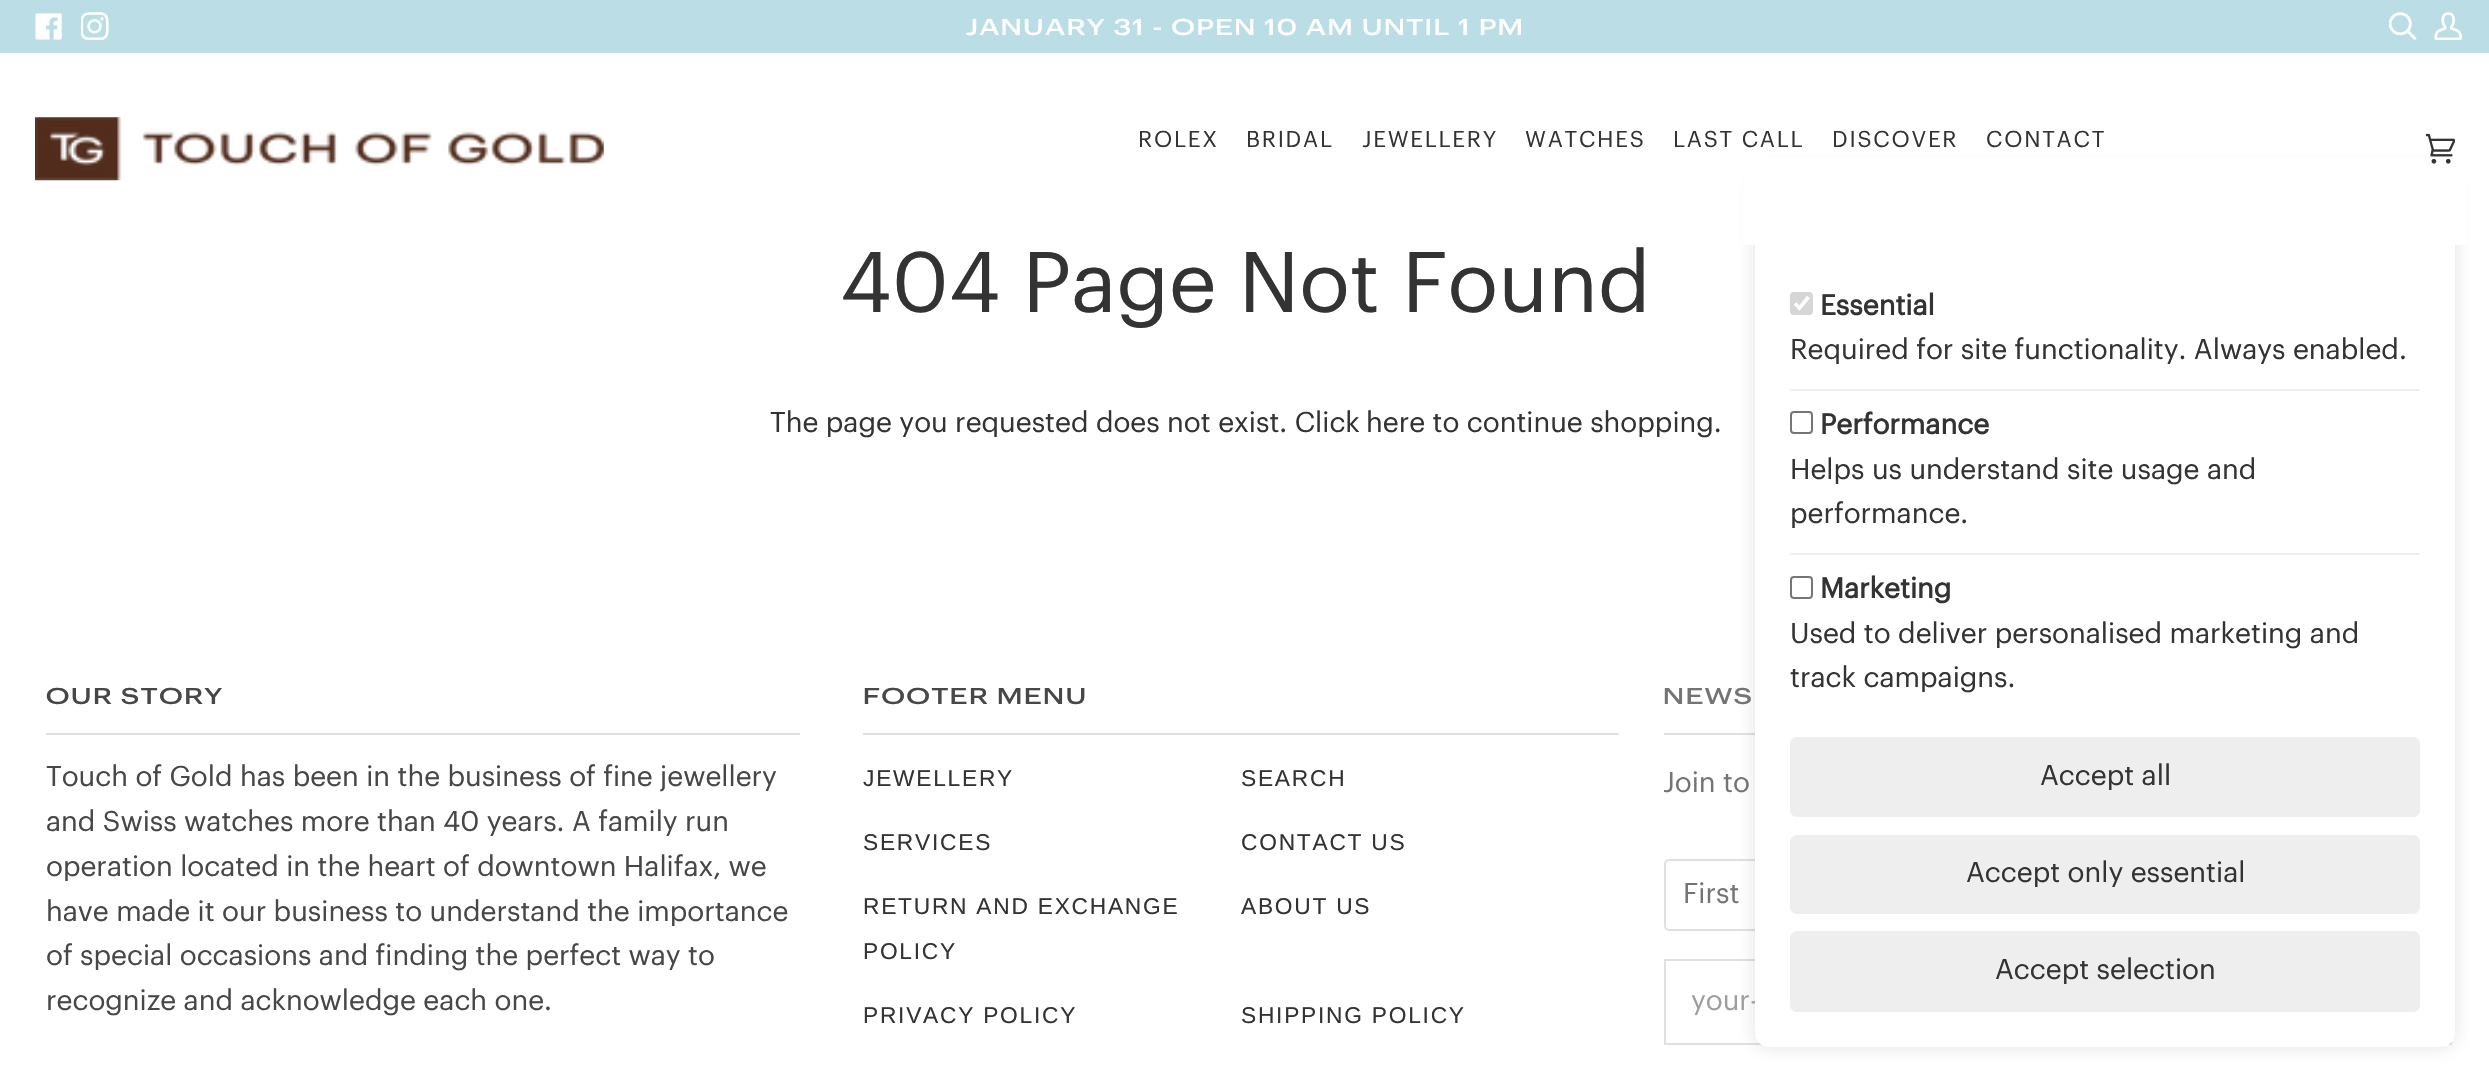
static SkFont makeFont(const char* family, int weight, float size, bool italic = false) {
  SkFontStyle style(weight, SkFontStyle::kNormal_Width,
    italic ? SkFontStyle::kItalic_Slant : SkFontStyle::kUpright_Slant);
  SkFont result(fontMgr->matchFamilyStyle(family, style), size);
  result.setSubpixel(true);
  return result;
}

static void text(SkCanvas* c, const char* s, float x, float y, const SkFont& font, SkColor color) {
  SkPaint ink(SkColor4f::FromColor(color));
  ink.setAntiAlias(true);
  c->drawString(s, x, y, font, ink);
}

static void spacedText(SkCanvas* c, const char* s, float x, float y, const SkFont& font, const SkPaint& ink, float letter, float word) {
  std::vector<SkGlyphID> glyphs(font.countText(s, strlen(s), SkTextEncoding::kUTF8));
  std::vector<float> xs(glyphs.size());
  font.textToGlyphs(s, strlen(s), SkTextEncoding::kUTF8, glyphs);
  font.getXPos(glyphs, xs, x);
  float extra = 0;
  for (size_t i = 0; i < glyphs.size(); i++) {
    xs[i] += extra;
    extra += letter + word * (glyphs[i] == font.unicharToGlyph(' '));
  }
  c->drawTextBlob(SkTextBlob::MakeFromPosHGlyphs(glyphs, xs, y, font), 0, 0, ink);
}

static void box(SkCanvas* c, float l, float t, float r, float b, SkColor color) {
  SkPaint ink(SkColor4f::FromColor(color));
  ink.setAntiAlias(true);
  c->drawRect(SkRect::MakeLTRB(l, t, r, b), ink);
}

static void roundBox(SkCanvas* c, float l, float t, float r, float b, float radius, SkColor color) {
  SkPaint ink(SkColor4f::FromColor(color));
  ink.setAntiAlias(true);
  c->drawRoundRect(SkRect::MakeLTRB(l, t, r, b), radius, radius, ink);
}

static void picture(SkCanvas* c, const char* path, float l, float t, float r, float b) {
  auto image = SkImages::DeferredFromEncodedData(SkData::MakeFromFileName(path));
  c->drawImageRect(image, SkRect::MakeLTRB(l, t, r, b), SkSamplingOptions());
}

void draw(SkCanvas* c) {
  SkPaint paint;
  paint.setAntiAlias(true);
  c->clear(0xffffffff);
  box(c, 0, 0, 2489, 53, 0xffbbdde6);
  picture(c, "img_01.png", 35, 13, 62, 40);
  picture(c, "img_02.png", 81, 12, 109, 40);
  SkFont face1 = makeFont("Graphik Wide", 500, 22.4f);
  paint.setColor(0xffffffff);
  spacedText(c, "JANUARY 31 - OPEN 10 AM UNTIL 1 PM", 966, 35, face1, paint, 1.75f, 0);
  picture(c, "img_03.png", 2389, 12, 2417, 40);
  picture(c, "img_04.png", 2434, 12, 2462, 40);
  box(c, 1664, 733, 1755, 735, 0xffe0e0e0);
  paint.setStyle(SkPaint::kStroke_Style);
  paint.setStrokeWidth(2);
  paint.setColor(0xffe0e0e0);
  c->drawRoundRect(SkRect::MakeLTRB(1665, 860, 2048, 930), 4, 4, paint);
  c->drawRect(SkRect::MakeLTRB(1665, 960, 2451, 1044), paint);
  paint.setStyle(SkPaint::kFill_Style);
  paint.setColor(0x26333333);
  paint.setMaskFilter(SkMaskFilter::MakeBlur(kNormal_SkBlurStyle, 9));
  c->drawRoundRect(SkRect::MakeLTRB(1755, 170, 2455, 1047), 14, 14, paint);
  paint.setMaskFilter(nullptr);
  SkFont face2 = makeFont("Graphik", 400, 28);
  text(c, "your-", 1691, 1010, face2, 0xff9e9e9e);
  roundBox(c, 1755, 170, 2455, 1047, 14, 0xffffffff);
  box(c, 1743, 158, 2467, 245, 0xffffffff);
  picture(c, "img_05.png", 35, 117, 604, 181);
  SkFont face3 = makeFont("Graphik", 400, 22.5f);
  paint.setColor(0xff333333);
  spacedText(c, "ROLEX", 1138, 147, face3, paint, 1.75f, 0);
  spacedText(c, "BRIDAL", 1246, 147, face3, paint, 1.75f, 0);
  spacedText(c, "JEWELLERY", 1362, 147, face3, paint, 1.75f, 0);
  spacedText(c, "WATCHES", 1525, 147, face3, paint, 1.75f, 0);
  spacedText(c, "LAST CALL", 1673, 147, face3, paint, 1.75f, 0);
  spacedText(c, "DISCOVER", 1832, 147, face3, paint, 1.75f, 0);
  spacedText(c, "CONTACT", 1986, 147, face3, paint, 1.75f, 0);
  picture(c, "img_06.png", 2426, 133, 2455, 164);
  SkFont face4 = makeFont("Graphik", 400, 83.75f);
  text(c, "404 Page Not Found", 840, 312, face4, 0xff333333);
  text(c, "The page you requested does not exist. Click", 770, 432, face2, 0xff333333);
  text(c, "here to continue shopping.", 1366, 432, face2, 0xff333333);
  box(c, 1790, 389, 2420, 391, 0xffeeeeee);
  roundBox(c, 1790, 292, 1813, 315, 4, 0xffd6d6d6);
  paint.setStyle(SkPaint::kStroke_Style);
  paint.setStrokeWidth(3.6f);
  paint.setColor(0xffffffff);
  c->drawPath(SkPathBuilder().moveTo(1795, 303.5f).lineTo(1799.5f, 308).lineTo(1808.5f, 297).detach(), paint);
  SkFont face5 = makeFont("Graphik", 700, 28);
  text(c, "Essential", 1820, 315, face5, 0xff333333);
  text(c, "Required for site functionality. Always enabled.", 1790, 359, face2, 0xff333333);
  box(c, 1790, 553, 2420, 555, 0xffeeeeee);
  paint.setStrokeWidth(2);
  paint.setColor(0xff767676);
  c->drawRoundRect(SkRect::MakeLTRB(1791, 412, 1812, 433), 3, 3, paint);
  text(c, "Performance", 1820, 434, face5, 0xff333333);
  text(c, "Helps us understand site usage and", 1790, 479, face2, 0xff333333);
  text(c, "performance.", 1790, 523, face2, 0xff333333);
  c->drawRoundRect(SkRect::MakeLTRB(1791, 577, 1812, 598), 3, 3, paint);
  text(c, "Marketing", 1820, 598, face5, 0xff333333);
  text(c, "Used to deliver personalised marketing and", 1790, 643, face2, 0xff333333);
  text(c, "track campaigns.", 1790, 687, face2, 0xff333333);
  roundBox(c, 1790, 737, 2420, 817, 7, 0xffeeeeee);
  text(c, "Accept all", 2040, 785, face2, 0xff333333);
  roundBox(c, 1790, 835, 2420, 914, 7, 0xffeeeeee);
  text(c, "Accept only essential", 1966, 882, face2, 0xff333333);
  roundBox(c, 1790, 931, 2420, 1012, 7, 0xffeeeeee);
  text(c, "Accept selection", 1995, 979, face2, 0xff333333);
  box(c, 46, 733, 800, 735, 0xffe0e0e0);
  SkFont face6 = makeFont("Graphik Wide", 500, 22.5f);
  paint.setStyle(SkPaint::kFill_Style);
  paint.setColor(0xff474747);
  spacedText(c, "OUR STORY", 46, 704, face6, paint, 1.75f, 0);
  text(c, "Touch of Gold has been in the business of fine jewellery", 46, 786, face2, 0xff474747);
  text(c, "and Swiss watches more than 40 years. A family run", 46, 831, face2, 0xff474747);
  text(c, "operation located in the heart of downtown Halifax, we", 46, 876, face2, 0xff474747);
  text(c, "have made it our business to understand the importance", 46, 921, face2, 0xff474747);
  text(c, "of special occasions and finding the perfect way to", 46, 965, face2, 0xff474747);
  text(c, "recognize and acknowledge each one.", 46, 1010, face2, 0xff474747);
  box(c, 863, 733, 1619, 735, 0xffe0e0e0);
  spacedText(c, "FOOTER MENU", 863, 704, face6, paint, 1.75f, 0);
  SkFont face7 = makeFont("Liberation Sans", 400, 22.75f);
  paint.setColor(0xff333333);
  spacedText(c, "JEWELLERY", 863, 786, face7, paint, 1.75f, 0);
  spacedText(c, "SEARCH", 1241, 786, face7, paint, 1.75f, 0);
  spacedText(c, "SERVICES", 863, 850, face7, paint, 1.75f, 0);
  spacedText(c, "CONTACT US", 1241, 850, face7, paint, 1.75f, 0);
  spacedText(c, "RETURN AND EXCHANGE", 863, 914, face7, paint, 1.75f, 0);
  spacedText(c, "POLICY", 863, 959, face7, paint, 1.75f, 0);
  spacedText(c, "ABOUT US", 1241, 914, face7, paint, 1.75f, 0);
  spacedText(c, "PRIVACY POLICY", 863, 1023, face7, paint, 1.75f, 0);
  spacedText(c, "SHIPPING POLICY", 1241, 1023, face7, paint, 1.75f, 0);
  paint.setColor(0xff747474);
  spacedText(c, "NEWS", 1663, 704, face6, paint, 1.75f, 0);
  text(c, "Join to", 1663, 792, face2, 0xff747474);
  text(c, "First", 1683, 903, face2, 0xff747474);
}
